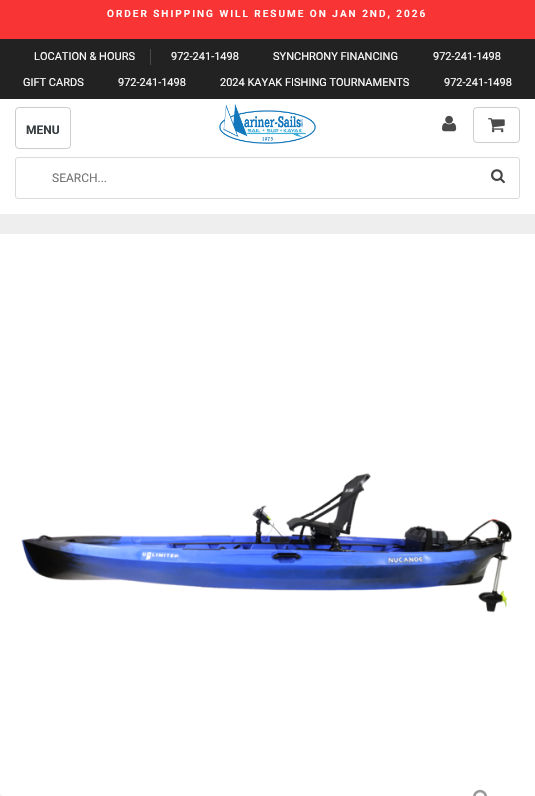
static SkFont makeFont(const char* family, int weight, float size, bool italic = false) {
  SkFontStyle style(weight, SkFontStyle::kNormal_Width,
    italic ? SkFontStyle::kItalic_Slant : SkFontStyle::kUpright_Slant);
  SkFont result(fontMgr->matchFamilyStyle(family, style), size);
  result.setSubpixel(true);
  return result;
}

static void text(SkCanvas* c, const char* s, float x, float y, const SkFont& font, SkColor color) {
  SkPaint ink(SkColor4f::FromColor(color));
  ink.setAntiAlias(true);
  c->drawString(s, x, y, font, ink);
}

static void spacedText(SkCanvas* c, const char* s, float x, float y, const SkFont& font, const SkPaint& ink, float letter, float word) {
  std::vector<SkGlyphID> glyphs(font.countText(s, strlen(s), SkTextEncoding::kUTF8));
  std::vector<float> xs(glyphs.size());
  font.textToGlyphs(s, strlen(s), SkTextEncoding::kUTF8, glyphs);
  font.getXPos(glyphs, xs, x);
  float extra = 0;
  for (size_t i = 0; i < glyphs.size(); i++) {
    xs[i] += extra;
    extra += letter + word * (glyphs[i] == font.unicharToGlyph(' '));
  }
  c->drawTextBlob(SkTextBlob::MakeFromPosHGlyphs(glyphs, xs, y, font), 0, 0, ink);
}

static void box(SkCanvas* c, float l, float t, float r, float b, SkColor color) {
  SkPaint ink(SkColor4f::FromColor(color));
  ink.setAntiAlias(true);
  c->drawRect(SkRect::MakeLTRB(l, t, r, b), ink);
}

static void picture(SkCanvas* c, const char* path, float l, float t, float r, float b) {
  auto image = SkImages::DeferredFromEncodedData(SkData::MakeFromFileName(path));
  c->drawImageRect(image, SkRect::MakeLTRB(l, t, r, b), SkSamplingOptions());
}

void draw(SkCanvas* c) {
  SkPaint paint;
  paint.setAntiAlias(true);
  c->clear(0xffffffff);
  box(c, 0, 0, 535, 39, 0xfff83434);
  SkFont face1 = makeFont("Roboto", 600, 10);
  paint.setColor(0xffffffff);
  spacedText(c, "ORDER SHIPPING WILL RESUME ON JAN 2ND, 2026", 107, 17, face1, paint, 2, 0);
  box(c, 0, 39, 535, 99, 0xff222222);
  box(c, 150, 49, 151, 65, 0xff4a4a4a);
  SkFont face2 = makeFont("Roboto", 400, 11);
  text(c, "LOCATION & HOURS", 34, 60, face2, 0xffffffff);
  text(c, "972-241-1498", 171, 60, face2, 0xffffffff);
  text(c, "SYNCHRONY FINANCING", 273, 60, face2, 0xffffffff);
  text(c, "972-241-1498", 433, 60, face2, 0xffffffff);
  text(c, "GIFT CARDS", 23, 86, face2, 0xffffffff);
  text(c, "972-241-1498", 118, 86, face2, 0xffffffff);
  text(c, "2024 KAYAK FISHING TOURNAMENTS", 220, 86, face2, 0xffffffff);
  text(c, "972-241-1498", 444, 86, face2, 0xffffffff);
  paint.setStyle(SkPaint::kStroke_Style);
  paint.setStrokeWidth(1);
  paint.setColor(0xffcccccc);
  c->drawRoundRect(SkRect::MakeLTRB(15.5f, 107.5f, 70.5f, 148.5f), 3.5f, 3.5f, paint);
  SkFont face3 = makeFont("Roboto", 700, 12);
  text(c, "MENU", 26, 134, face3, 0xff363c3f);
  picture(c, "img_01.png", 219, 104, 316, 144);
  picture(c, "img_02.png", 442, 115, 457, 132);
  c->drawRoundRect(SkRect::MakeLTRB(473.5f, 107.5f, 519.5f, 142.5f), 3.5f, 3.5f, paint);
  picture(c, "img_03.png", 488, 118, 505, 133);
  paint.setColor(0xffdbdbdb);
  c->drawRoundRect(SkRect::MakeLTRB(15.5f, 157.5f, 519.5f, 198.5f), 2.5f, 2.5f, paint);
  SkFont face4 = makeFont("Roboto", 400, 12);
  text(c, "SEARCH...", 52, 182, face4, 0xff757575);
  picture(c, "img_04.png", 491, 169, 505, 184);
  box(c, 0, 214, 535, 234, 0xffeeeeee);
  picture(c, "img_05.png", 21, 473, 512, 613);
  picture(c, "img_06.png", 473, 789, 487, 796);
  box(c, 0, 794, 2, 796, 0xfff5f5f5);
}
